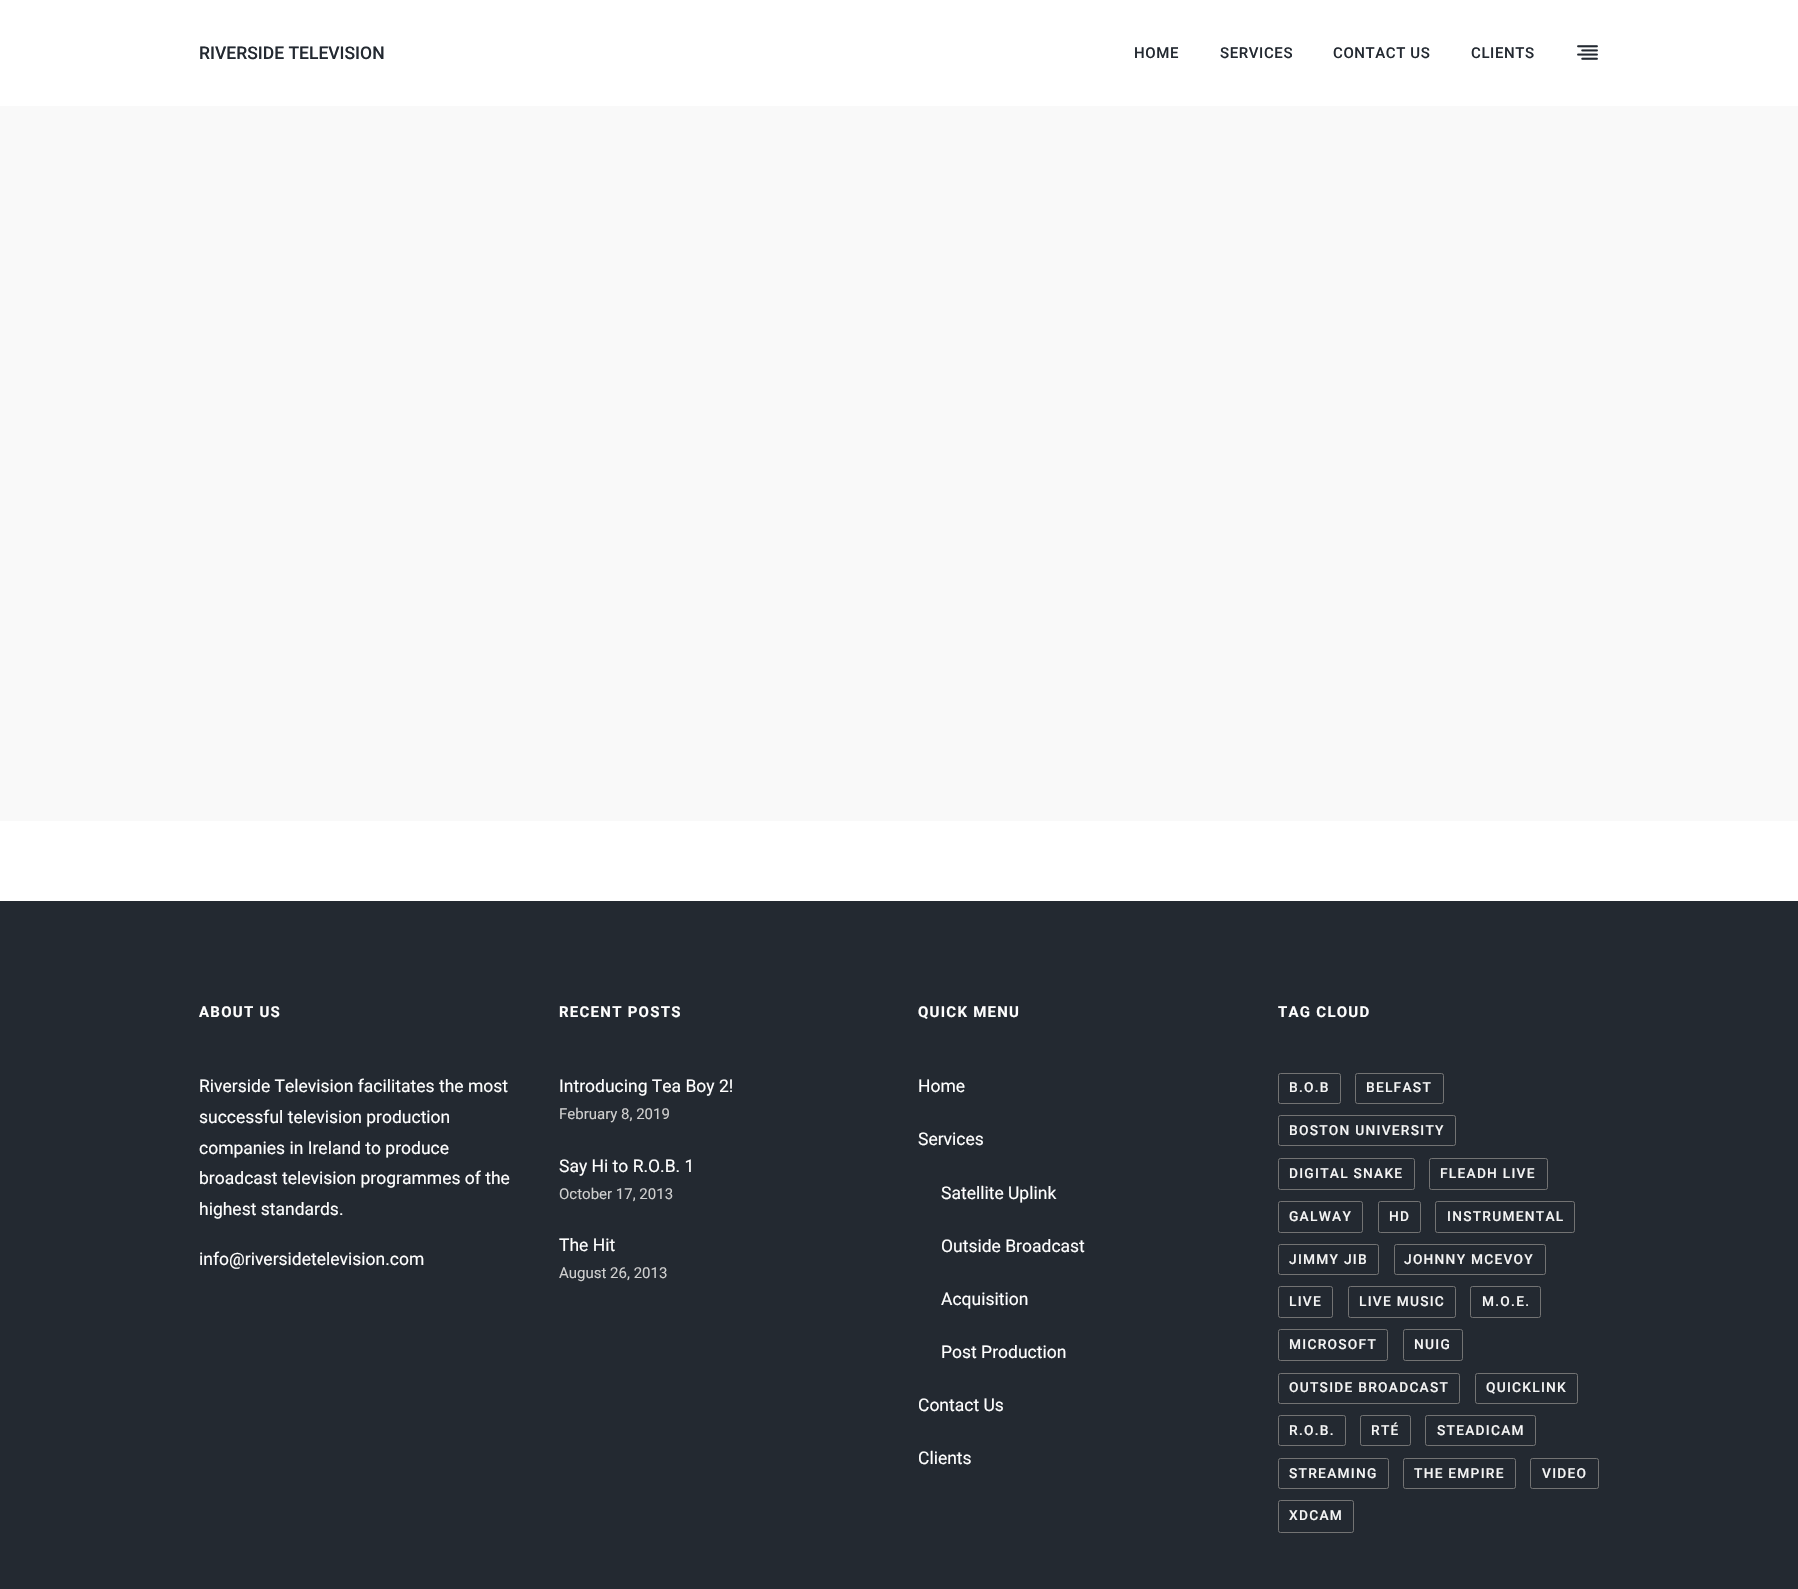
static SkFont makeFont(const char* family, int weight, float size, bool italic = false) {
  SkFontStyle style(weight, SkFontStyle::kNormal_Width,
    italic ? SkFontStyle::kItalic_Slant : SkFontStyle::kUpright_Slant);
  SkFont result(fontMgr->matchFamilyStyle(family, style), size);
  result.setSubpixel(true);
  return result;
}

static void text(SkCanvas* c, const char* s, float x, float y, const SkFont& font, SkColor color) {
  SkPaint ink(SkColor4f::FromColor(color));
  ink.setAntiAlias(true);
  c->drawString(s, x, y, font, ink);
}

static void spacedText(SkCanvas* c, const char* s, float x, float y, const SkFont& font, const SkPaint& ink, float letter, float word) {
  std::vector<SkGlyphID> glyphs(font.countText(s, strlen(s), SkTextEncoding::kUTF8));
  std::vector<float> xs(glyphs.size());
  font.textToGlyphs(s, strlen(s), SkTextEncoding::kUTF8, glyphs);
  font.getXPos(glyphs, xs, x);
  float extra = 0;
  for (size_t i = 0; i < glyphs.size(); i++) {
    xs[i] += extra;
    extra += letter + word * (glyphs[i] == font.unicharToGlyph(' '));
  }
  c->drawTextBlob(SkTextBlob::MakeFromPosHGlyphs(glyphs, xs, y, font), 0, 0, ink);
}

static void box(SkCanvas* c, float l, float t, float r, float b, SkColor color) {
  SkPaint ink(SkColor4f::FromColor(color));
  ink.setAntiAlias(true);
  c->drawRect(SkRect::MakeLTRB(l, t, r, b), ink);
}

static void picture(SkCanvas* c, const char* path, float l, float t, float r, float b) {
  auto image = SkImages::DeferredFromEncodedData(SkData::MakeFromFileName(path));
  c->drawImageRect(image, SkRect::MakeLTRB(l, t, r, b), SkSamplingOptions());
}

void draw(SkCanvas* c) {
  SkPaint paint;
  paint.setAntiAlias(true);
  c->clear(0xffffffff);
  SkFont face1 = makeFont("Roboto", 500, 17.5f);
  text(c, "RIVERSIDE TELEVISION", 199, 59, face1, 0xff232931);
  SkFont face2 = makeFont("Roboto", 500, 15);
  paint.setColor(0xff232931);
  spacedText(c, "HOME", 1134, 58, face2, paint, 0.6f, 0);
  spacedText(c, "SERVICES", 1220, 58, face2, paint, 0.6f, 0);
  spacedText(c, "CONTACT US", 1333, 58, face2, paint, 0.6f, 0);
  spacedText(c, "CLIENTS", 1471, 58, face2, paint, 0.6f, 0);
  picture(c, "img_01.png", 1577, 45, 1598, 60);
  box(c, 0, 106, 1798, 821, 0xfff9f9f9);
  box(c, 0, 901, 1798, 1589, 0xff232931);
  SkFont face3 = makeFont("Roboto", 700, 15);
  paint.setColor(0xffffffff);
  spacedText(c, "ABOUT US", 199, 1017, face3, paint, 1.25f, 0);
  SkFont face4 = makeFont("Roboto", 400, 17.5f);
  text(c, "Riverside Television facilitates the most", 199, 1092, face4, 0xffffffff);
  text(c, "successful television production", 199, 1123, face4, 0xffffffff);
  text(c, "companies in Ireland to produce", 199, 1154, face4, 0xffffffff);
  text(c, "broadcast television programmes of the", 199, 1184, face4, 0xffffffff);
  text(c, "highest standards.", 199, 1215, face4, 0xffffffff);
  text(c, "info@riversidetelevision.com", 199, 1265, face4, 0xffffffff);
  spacedText(c, "RECENT POSTS", 559, 1017, face3, paint, 1.25f, 0);
  text(c, "Introducing Tea Boy 2!", 559, 1092, face4, 0xffffffff);
  SkFont face5 = makeFont("Roboto", 400, 15);
  text(c, "February 8, 2019", 559, 1119, face5, 0xffcfcfcf);
  text(c, "Say Hi to R.O.B. 1", 559, 1172, face4, 0xffffffff);
  text(c, "October 17, 2013", 559, 1199, face5, 0xffcfcfcf);
  text(c, "The Hit", 559, 1251, face4, 0xffffffff);
  text(c, "August 26, 2013", 559, 1278, face5, 0xffcfcfcf);
  spacedText(c, "QUICK MENU", 918, 1017, face3, paint, 1.25f, 0);
  text(c, "Home", 918, 1092, face4, 0xffffffff);
  text(c, "Services", 918, 1145, face4, 0xffffffff);
  text(c, "Satellite Uplink", 941, 1199, face4, 0xffffffff);
  text(c, "Outside Broadcast", 941, 1252, face4, 0xffffffff);
  text(c, "Acquisition", 941, 1305, face4, 0xffffffff);
  text(c, "Post Production", 941, 1358, face4, 0xffffffff);
  text(c, "Contact Us", 918, 1411, face4, 0xffffffff);
  text(c, "Clients", 918, 1464, face4, 0xffffffff);
  spacedText(c, "TAG CLOUD", 1278, 1017, face3, paint, 1.25f, 0);
  paint.setStyle(SkPaint::kStroke_Style);
  paint.setStrokeWidth(1);
  paint.setColor(0xff737373);
  c->drawRoundRect(SkRect::MakeLTRB(1278.5f, 1073.5f, 1340.5f, 1103.5f), 2, 2, paint);
  SkFont face6 = makeFont("Roboto", 500, 13.75f);
  paint.setStyle(SkPaint::kFill_Style);
  paint.setColor(0xfff5f5f5);
  spacedText(c, "B.O.B", 1289, 1092, face6, paint, 1.25f, 0);
  paint.setStyle(SkPaint::kStroke_Style);
  paint.setColor(0xff737373);
  c->drawRoundRect(SkRect::MakeLTRB(1355.5f, 1073.5f, 1443.5f, 1103.5f), 2, 2, paint);
  paint.setStyle(SkPaint::kFill_Style);
  paint.setColor(0xfff5f5f5);
  spacedText(c, "BELFAST", 1366, 1092, face6, paint, 1.25f, 0);
  paint.setStyle(SkPaint::kStroke_Style);
  paint.setColor(0xff737373);
  c->drawRoundRect(SkRect::MakeLTRB(1278.5f, 1115.5f, 1455.5f, 1145.5f), 2, 2, paint);
  paint.setStyle(SkPaint::kFill_Style);
  paint.setColor(0xfff5f5f5);
  spacedText(c, "BOSTON UNIVERSITY", 1289, 1135, face6, paint, 1.25f, 0);
  paint.setStyle(SkPaint::kStroke_Style);
  paint.setColor(0xff737373);
  c->drawRoundRect(SkRect::MakeLTRB(1278.5f, 1158.5f, 1414.5f, 1189.5f), 2, 2, paint);
  paint.setStyle(SkPaint::kFill_Style);
  paint.setColor(0xfff5f5f5);
  spacedText(c, "DIGITAL SNAKE", 1289, 1178, face6, paint, 1.25f, 0);
  paint.setStyle(SkPaint::kStroke_Style);
  paint.setColor(0xff737373);
  c->drawRoundRect(SkRect::MakeLTRB(1429.5f, 1158.5f, 1547.5f, 1189.5f), 2, 2, paint);
  paint.setStyle(SkPaint::kFill_Style);
  paint.setColor(0xfff5f5f5);
  spacedText(c, "FLEADH LIVE", 1440, 1178, face6, paint, 1.25f, 0);
  paint.setStyle(SkPaint::kStroke_Style);
  paint.setColor(0xff737373);
  c->drawRoundRect(SkRect::MakeLTRB(1278.5f, 1201.5f, 1362.5f, 1232.5f), 2, 2, paint);
  paint.setStyle(SkPaint::kFill_Style);
  paint.setColor(0xfff5f5f5);
  spacedText(c, "GALWAY", 1289, 1221, face6, paint, 1.25f, 0);
  paint.setStyle(SkPaint::kStroke_Style);
  paint.setColor(0xff737373);
  c->drawRoundRect(SkRect::MakeLTRB(1378.5f, 1201.5f, 1420.5f, 1232.5f), 2, 2, paint);
  paint.setStyle(SkPaint::kFill_Style);
  paint.setColor(0xfff5f5f5);
  spacedText(c, "HD", 1389, 1221, face6, paint, 1.25f, 0);
  paint.setStyle(SkPaint::kStroke_Style);
  paint.setColor(0xff737373);
  c->drawRoundRect(SkRect::MakeLTRB(1435.5f, 1201.5f, 1574.5f, 1232.5f), 2, 2, paint);
  paint.setStyle(SkPaint::kFill_Style);
  paint.setColor(0xfff5f5f5);
  spacedText(c, "INSTRUMENTAL", 1447, 1221, face6, paint, 1.25f, 0);
  paint.setStyle(SkPaint::kStroke_Style);
  paint.setColor(0xff737373);
  c->drawRoundRect(SkRect::MakeLTRB(1278.5f, 1244.5f, 1378.5f, 1274.5f), 2, 2, paint);
  paint.setStyle(SkPaint::kFill_Style);
  paint.setColor(0xfff5f5f5);
  spacedText(c, "JIMMY JIB", 1289, 1264, face6, paint, 1.25f, 0);
  paint.setStyle(SkPaint::kStroke_Style);
  paint.setColor(0xff737373);
  c->drawRoundRect(SkRect::MakeLTRB(1394.5f, 1244.5f, 1545.5f, 1274.5f), 2, 2, paint);
  paint.setStyle(SkPaint::kFill_Style);
  paint.setColor(0xfff5f5f5);
  spacedText(c, "JOHNNY MCEVOY", 1404, 1264, face6, paint, 1.25f, 0);
  paint.setStyle(SkPaint::kStroke_Style);
  paint.setColor(0xff737373);
  c->drawRoundRect(SkRect::MakeLTRB(1278.5f, 1286.5f, 1332.5f, 1317.5f), 2, 2, paint);
  paint.setStyle(SkPaint::kFill_Style);
  paint.setColor(0xfff5f5f5);
  spacedText(c, "LIVE", 1289, 1306, face6, paint, 1.25f, 0);
  paint.setStyle(SkPaint::kStroke_Style);
  paint.setColor(0xff737373);
  c->drawRoundRect(SkRect::MakeLTRB(1348.5f, 1286.5f, 1455.5f, 1317.5f), 2, 2, paint);
  paint.setStyle(SkPaint::kFill_Style);
  paint.setColor(0xfff5f5f5);
  spacedText(c, "LIVE MUSIC", 1359, 1306, face6, paint, 1.25f, 0);
  paint.setStyle(SkPaint::kStroke_Style);
  paint.setColor(0xff737373);
  c->drawRoundRect(SkRect::MakeLTRB(1470.5f, 1286.5f, 1540.5f, 1317.5f), 2, 2, paint);
  paint.setStyle(SkPaint::kFill_Style);
  paint.setColor(0xfff5f5f5);
  spacedText(c, "M.O.E.", 1482, 1306, face6, paint, 1.25f, 0);
  paint.setStyle(SkPaint::kStroke_Style);
  paint.setColor(0xff737373);
  c->drawRoundRect(SkRect::MakeLTRB(1278.5f, 1329.5f, 1387.5f, 1360.5f), 2, 2, paint);
  paint.setStyle(SkPaint::kFill_Style);
  paint.setColor(0xfff5f5f5);
  spacedText(c, "MICROSOFT", 1289, 1349, face6, paint, 1.25f, 0);
  paint.setStyle(SkPaint::kStroke_Style);
  paint.setColor(0xff737373);
  c->drawRoundRect(SkRect::MakeLTRB(1403.5f, 1329.5f, 1462.5f, 1360.5f), 2, 2, paint);
  paint.setStyle(SkPaint::kFill_Style);
  paint.setColor(0xfff5f5f5);
  spacedText(c, "NUIG", 1414, 1349, face6, paint, 1.25f, 0);
  paint.setStyle(SkPaint::kStroke_Style);
  paint.setColor(0xff737373);
  c->drawRoundRect(SkRect::MakeLTRB(1278.5f, 1373.5f, 1459.5f, 1403.5f), 2, 2, paint);
  paint.setStyle(SkPaint::kFill_Style);
  paint.setColor(0xfff5f5f5);
  spacedText(c, "OUTSIDE BROADCAST", 1289, 1392, face6, paint, 1.25f, 0);
  paint.setStyle(SkPaint::kStroke_Style);
  paint.setColor(0xff737373);
  c->drawRoundRect(SkRect::MakeLTRB(1475.5f, 1373.5f, 1577.5f, 1403.5f), 2, 2, paint);
  paint.setStyle(SkPaint::kFill_Style);
  paint.setColor(0xfff5f5f5);
  spacedText(c, "QUICKLINK", 1486, 1392, face6, paint, 1.25f, 0);
  paint.setStyle(SkPaint::kStroke_Style);
  paint.setColor(0xff737373);
  c->drawRoundRect(SkRect::MakeLTRB(1278.5f, 1415.5f, 1345.5f, 1445.5f), 2, 2, paint);
  paint.setStyle(SkPaint::kFill_Style);
  paint.setColor(0xfff5f5f5);
  spacedText(c, "R.O.B.", 1289, 1435, face6, paint, 1.25f, 0);
  paint.setStyle(SkPaint::kStroke_Style);
  paint.setColor(0xff737373);
  c->drawRoundRect(SkRect::MakeLTRB(1360.5f, 1415.5f, 1410.5f, 1445.5f), 2, 2, paint);
  paint.setStyle(SkPaint::kFill_Style);
  paint.setColor(0xfff5f5f5);
  spacedText(c, "RTÉ", 1371, 1435, face6, paint, 1.25f, 0);
  paint.setStyle(SkPaint::kStroke_Style);
  paint.setColor(0xff737373);
  c->drawRoundRect(SkRect::MakeLTRB(1425.5f, 1415.5f, 1535.5f, 1445.5f), 2, 2, paint);
  paint.setStyle(SkPaint::kFill_Style);
  paint.setColor(0xfff5f5f5);
  spacedText(c, "STEADICAM", 1437, 1435, face6, paint, 1.25f, 0);
  paint.setStyle(SkPaint::kStroke_Style);
  paint.setColor(0xff737373);
  c->drawRoundRect(SkRect::MakeLTRB(1278.5f, 1458.5f, 1388.5f, 1488.5f), 2, 2, paint);
  paint.setStyle(SkPaint::kFill_Style);
  paint.setColor(0xfff5f5f5);
  spacedText(c, "STREAMING", 1289, 1478, face6, paint, 1.25f, 0);
  paint.setStyle(SkPaint::kStroke_Style);
  paint.setColor(0xff737373);
  c->drawRoundRect(SkRect::MakeLTRB(1403.5f, 1458.5f, 1515.5f, 1488.5f), 2, 2, paint);
  paint.setStyle(SkPaint::kFill_Style);
  paint.setColor(0xfff5f5f5);
  spacedText(c, "THE EMPIRE", 1414, 1478, face6, paint, 1.25f, 0);
  paint.setStyle(SkPaint::kStroke_Style);
  paint.setColor(0xff737373);
  c->drawRoundRect(SkRect::MakeLTRB(1530.5f, 1458.5f, 1598.5f, 1488.5f), 2, 2, paint);
  paint.setStyle(SkPaint::kFill_Style);
  paint.setColor(0xfff5f5f5);
  spacedText(c, "VIDEO", 1542, 1478, face6, paint, 1.25f, 0);
  paint.setStyle(SkPaint::kStroke_Style);
  paint.setColor(0xff737373);
  c->drawRoundRect(SkRect::MakeLTRB(1278.5f, 1500.5f, 1353.5f, 1532.5f), 2, 2, paint);
  paint.setStyle(SkPaint::kFill_Style);
  paint.setColor(0xfff5f5f5);
  spacedText(c, "XDCAM", 1289, 1520, face6, paint, 1.25f, 0);
}
